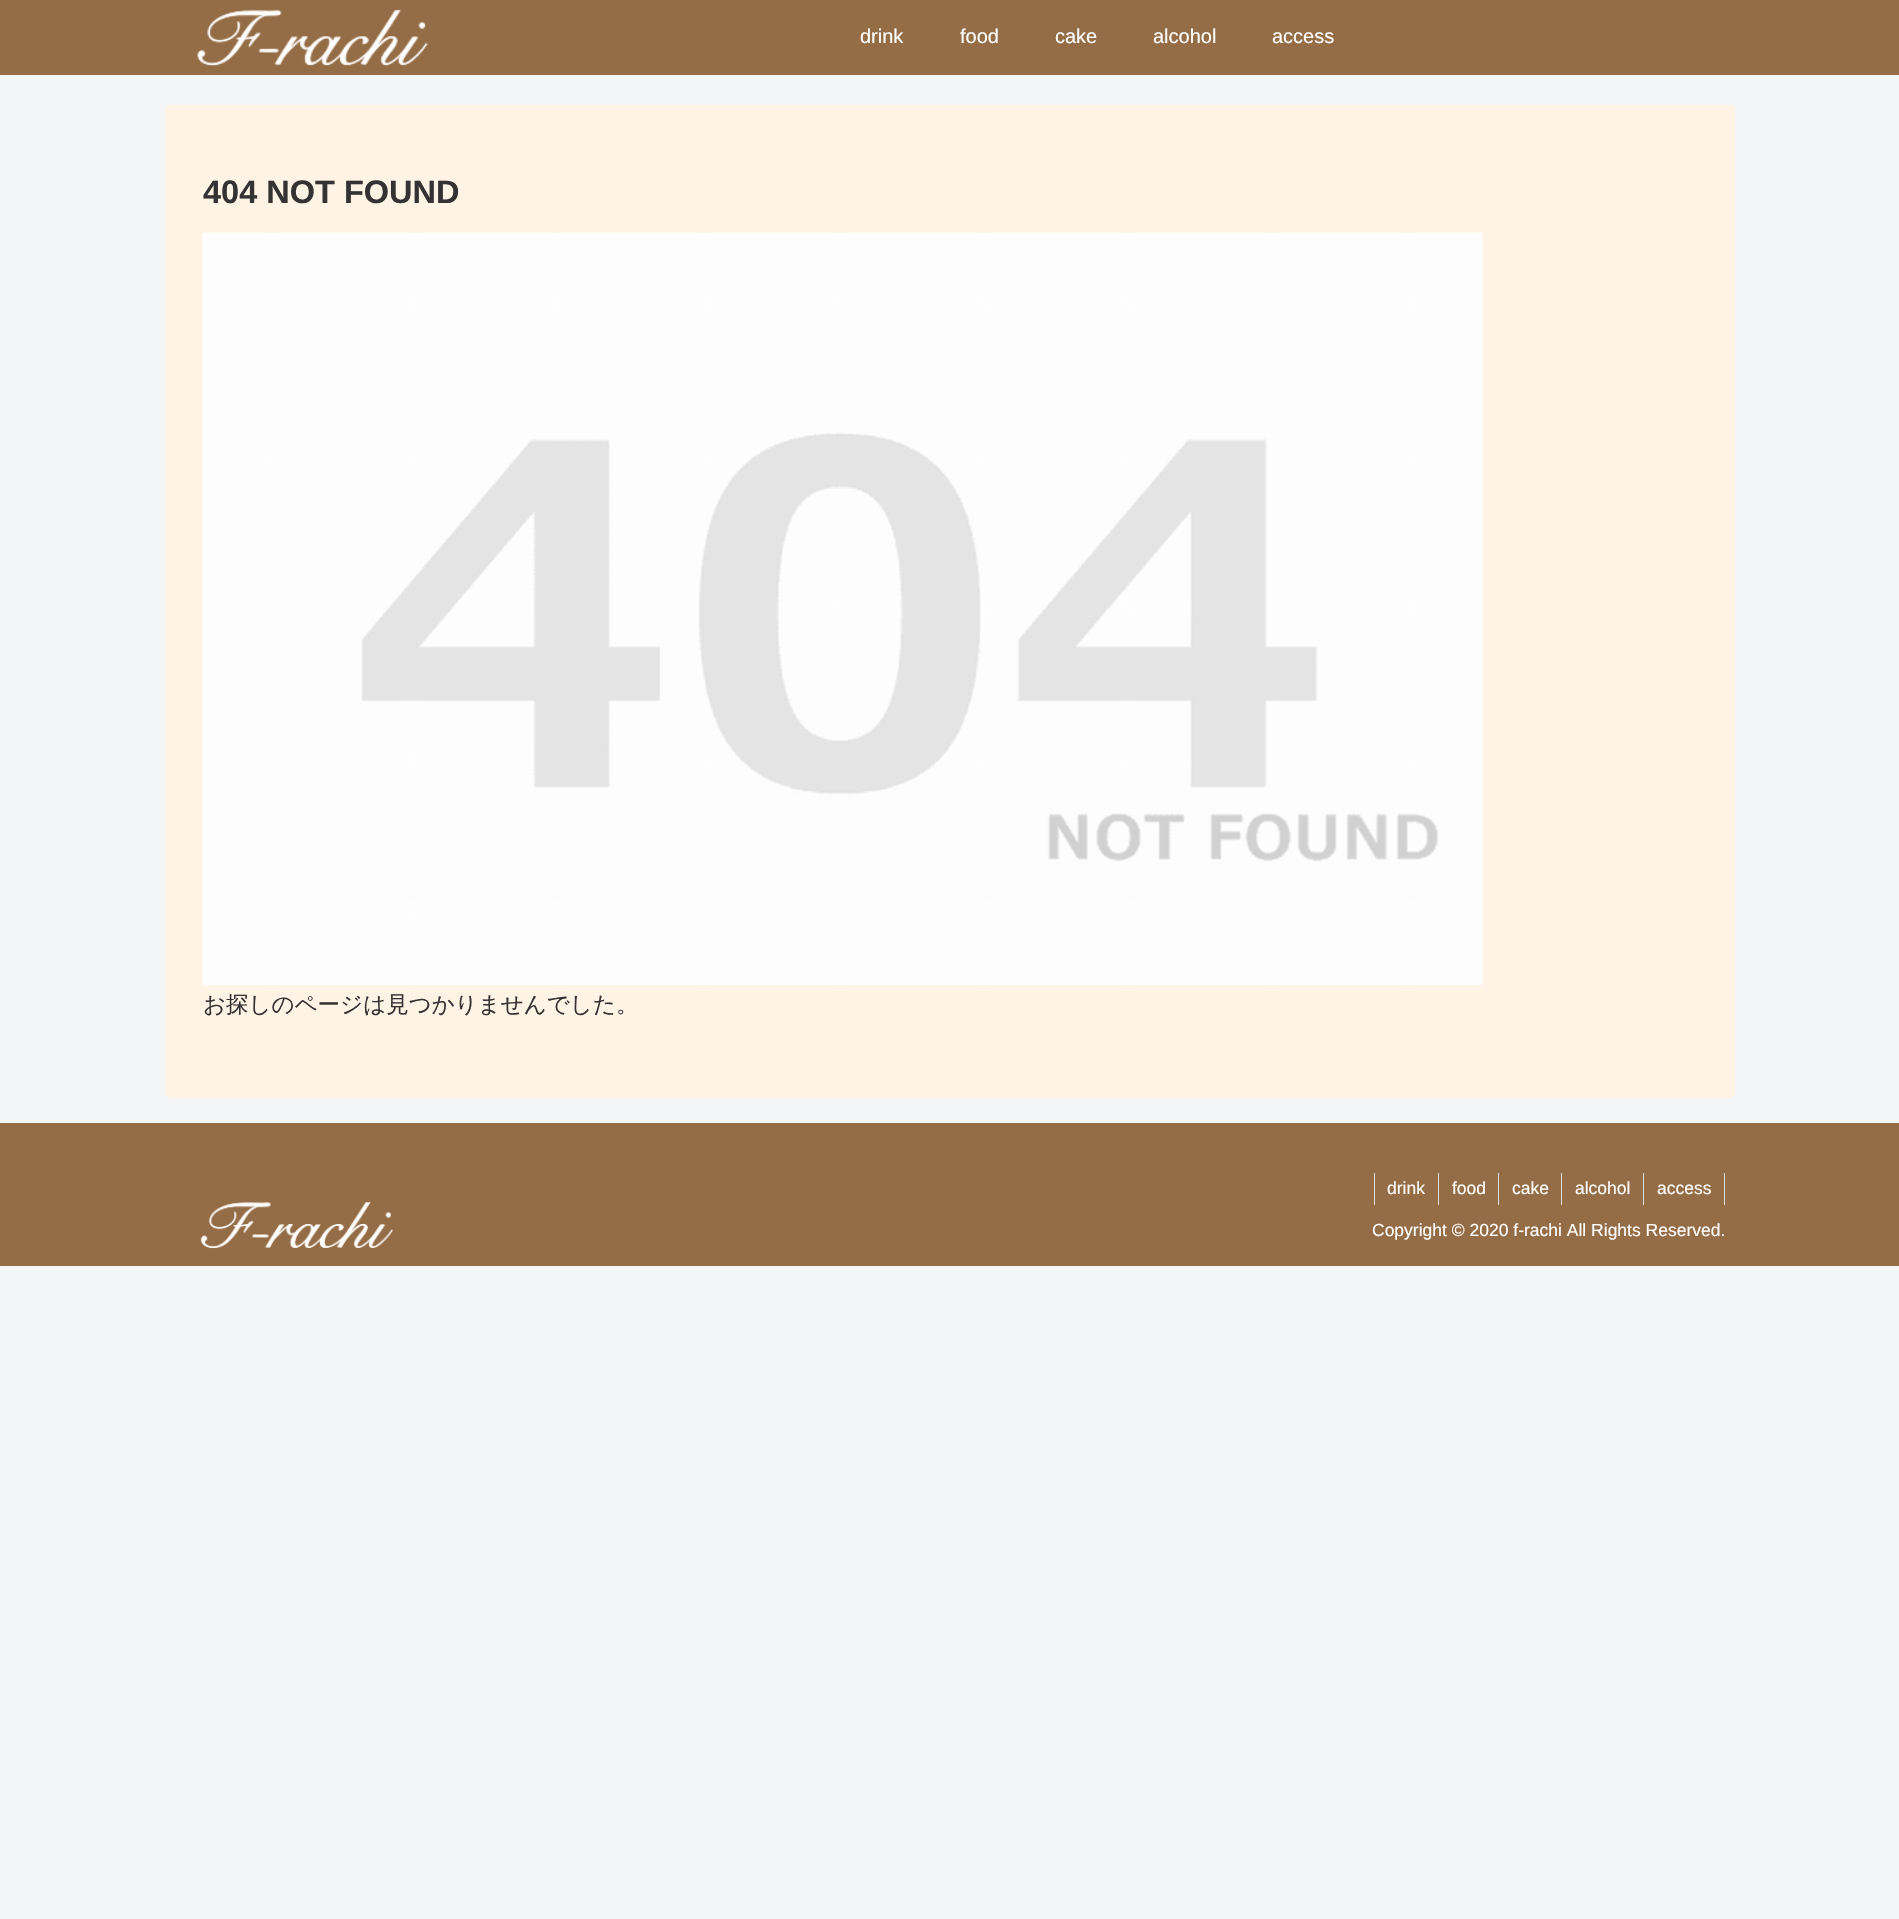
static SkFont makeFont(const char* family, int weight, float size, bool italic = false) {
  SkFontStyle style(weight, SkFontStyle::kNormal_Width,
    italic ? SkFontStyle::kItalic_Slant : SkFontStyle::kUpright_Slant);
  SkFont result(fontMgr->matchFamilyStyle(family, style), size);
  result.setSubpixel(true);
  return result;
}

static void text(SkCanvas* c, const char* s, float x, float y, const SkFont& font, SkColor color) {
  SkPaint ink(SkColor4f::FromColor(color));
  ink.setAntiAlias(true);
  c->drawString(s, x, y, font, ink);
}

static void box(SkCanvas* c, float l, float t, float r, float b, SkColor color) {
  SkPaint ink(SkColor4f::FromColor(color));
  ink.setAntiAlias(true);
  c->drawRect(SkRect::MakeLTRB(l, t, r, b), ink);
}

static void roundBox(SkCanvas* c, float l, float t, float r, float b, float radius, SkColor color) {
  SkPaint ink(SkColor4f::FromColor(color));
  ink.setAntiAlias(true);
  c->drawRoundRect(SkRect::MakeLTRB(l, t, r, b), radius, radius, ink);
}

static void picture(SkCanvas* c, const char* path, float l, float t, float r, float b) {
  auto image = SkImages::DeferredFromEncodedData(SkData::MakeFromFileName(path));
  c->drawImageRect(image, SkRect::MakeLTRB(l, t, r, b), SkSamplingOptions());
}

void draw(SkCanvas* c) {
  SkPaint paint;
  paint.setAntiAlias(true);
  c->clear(0xfff4f5f7);
  box(c, 0, 0, 1899, 75, 0xff946c45);
  picture(c, "img_01.png", 197, 9, 428, 66);
  SkFont face1 = makeFont("Liberation Sans", 400, 20);
  text(c, "drink", 860, 43, face1, 0xffffffff);
  text(c, "food", 960, 43, face1, 0xffffffff);
  text(c, "cake", 1055, 43, face1, 0xffffffff);
  text(c, "alcohol", 1153, 43, face1, 0xffffffff);
  text(c, "access", 1272, 43, face1, 0xffffffff);
  roundBox(c, 165, 105, 1735, 1098, 5, 0xfffff3e6);
  SkFont face2 = makeFont("Liberation Sans", 700, 32.5f);
  text(c, "404 NOT FOUND", 203, 203, face2, 0xff333333);
  picture(c, "img_02.png", 202, 232, 1483, 985);
  SkFont face3 = makeFont("WenQuanYi Zen Hei", 500, 22.5f);
  text(c, "お探しのページは見つかりませんでした。", 203, 1012, face3, 0xff333333);
  box(c, 0, 1123, 1899, 1266, 0xff946c45);
  picture(c, "img_03.png", 200, 1202, 393, 1249);
  box(c, 1374, 1173, 1375, 1205, 0xffdddddd);
  SkFont face4 = makeFont("Liberation Sans", 400, 17.5f);
  text(c, "drink", 1387, 1194, face4, 0xffffffff);
  box(c, 1438, 1173, 1439, 1205, 0xffdddddd);
  text(c, "food", 1452, 1194, face4, 0xffffffff);
  box(c, 1498, 1173, 1499, 1205, 0xffdddddd);
  text(c, "cake", 1512, 1194, face4, 0xffffffff);
  box(c, 1561, 1173, 1562, 1205, 0xffdddddd);
  text(c, "alcohol", 1575, 1194, face4, 0xffffffff);
  box(c, 1724, 1173, 1725, 1205, 0xffdddddd);
  box(c, 1643, 1173, 1644, 1205, 0xffdddddd);
  text(c, "access", 1657, 1194, face4, 0xffffffff);
  text(c, "Copyright © 2020 f-rachi All Rights Reserved.", 1372, 1236, face4, 0xffffffff);
}
